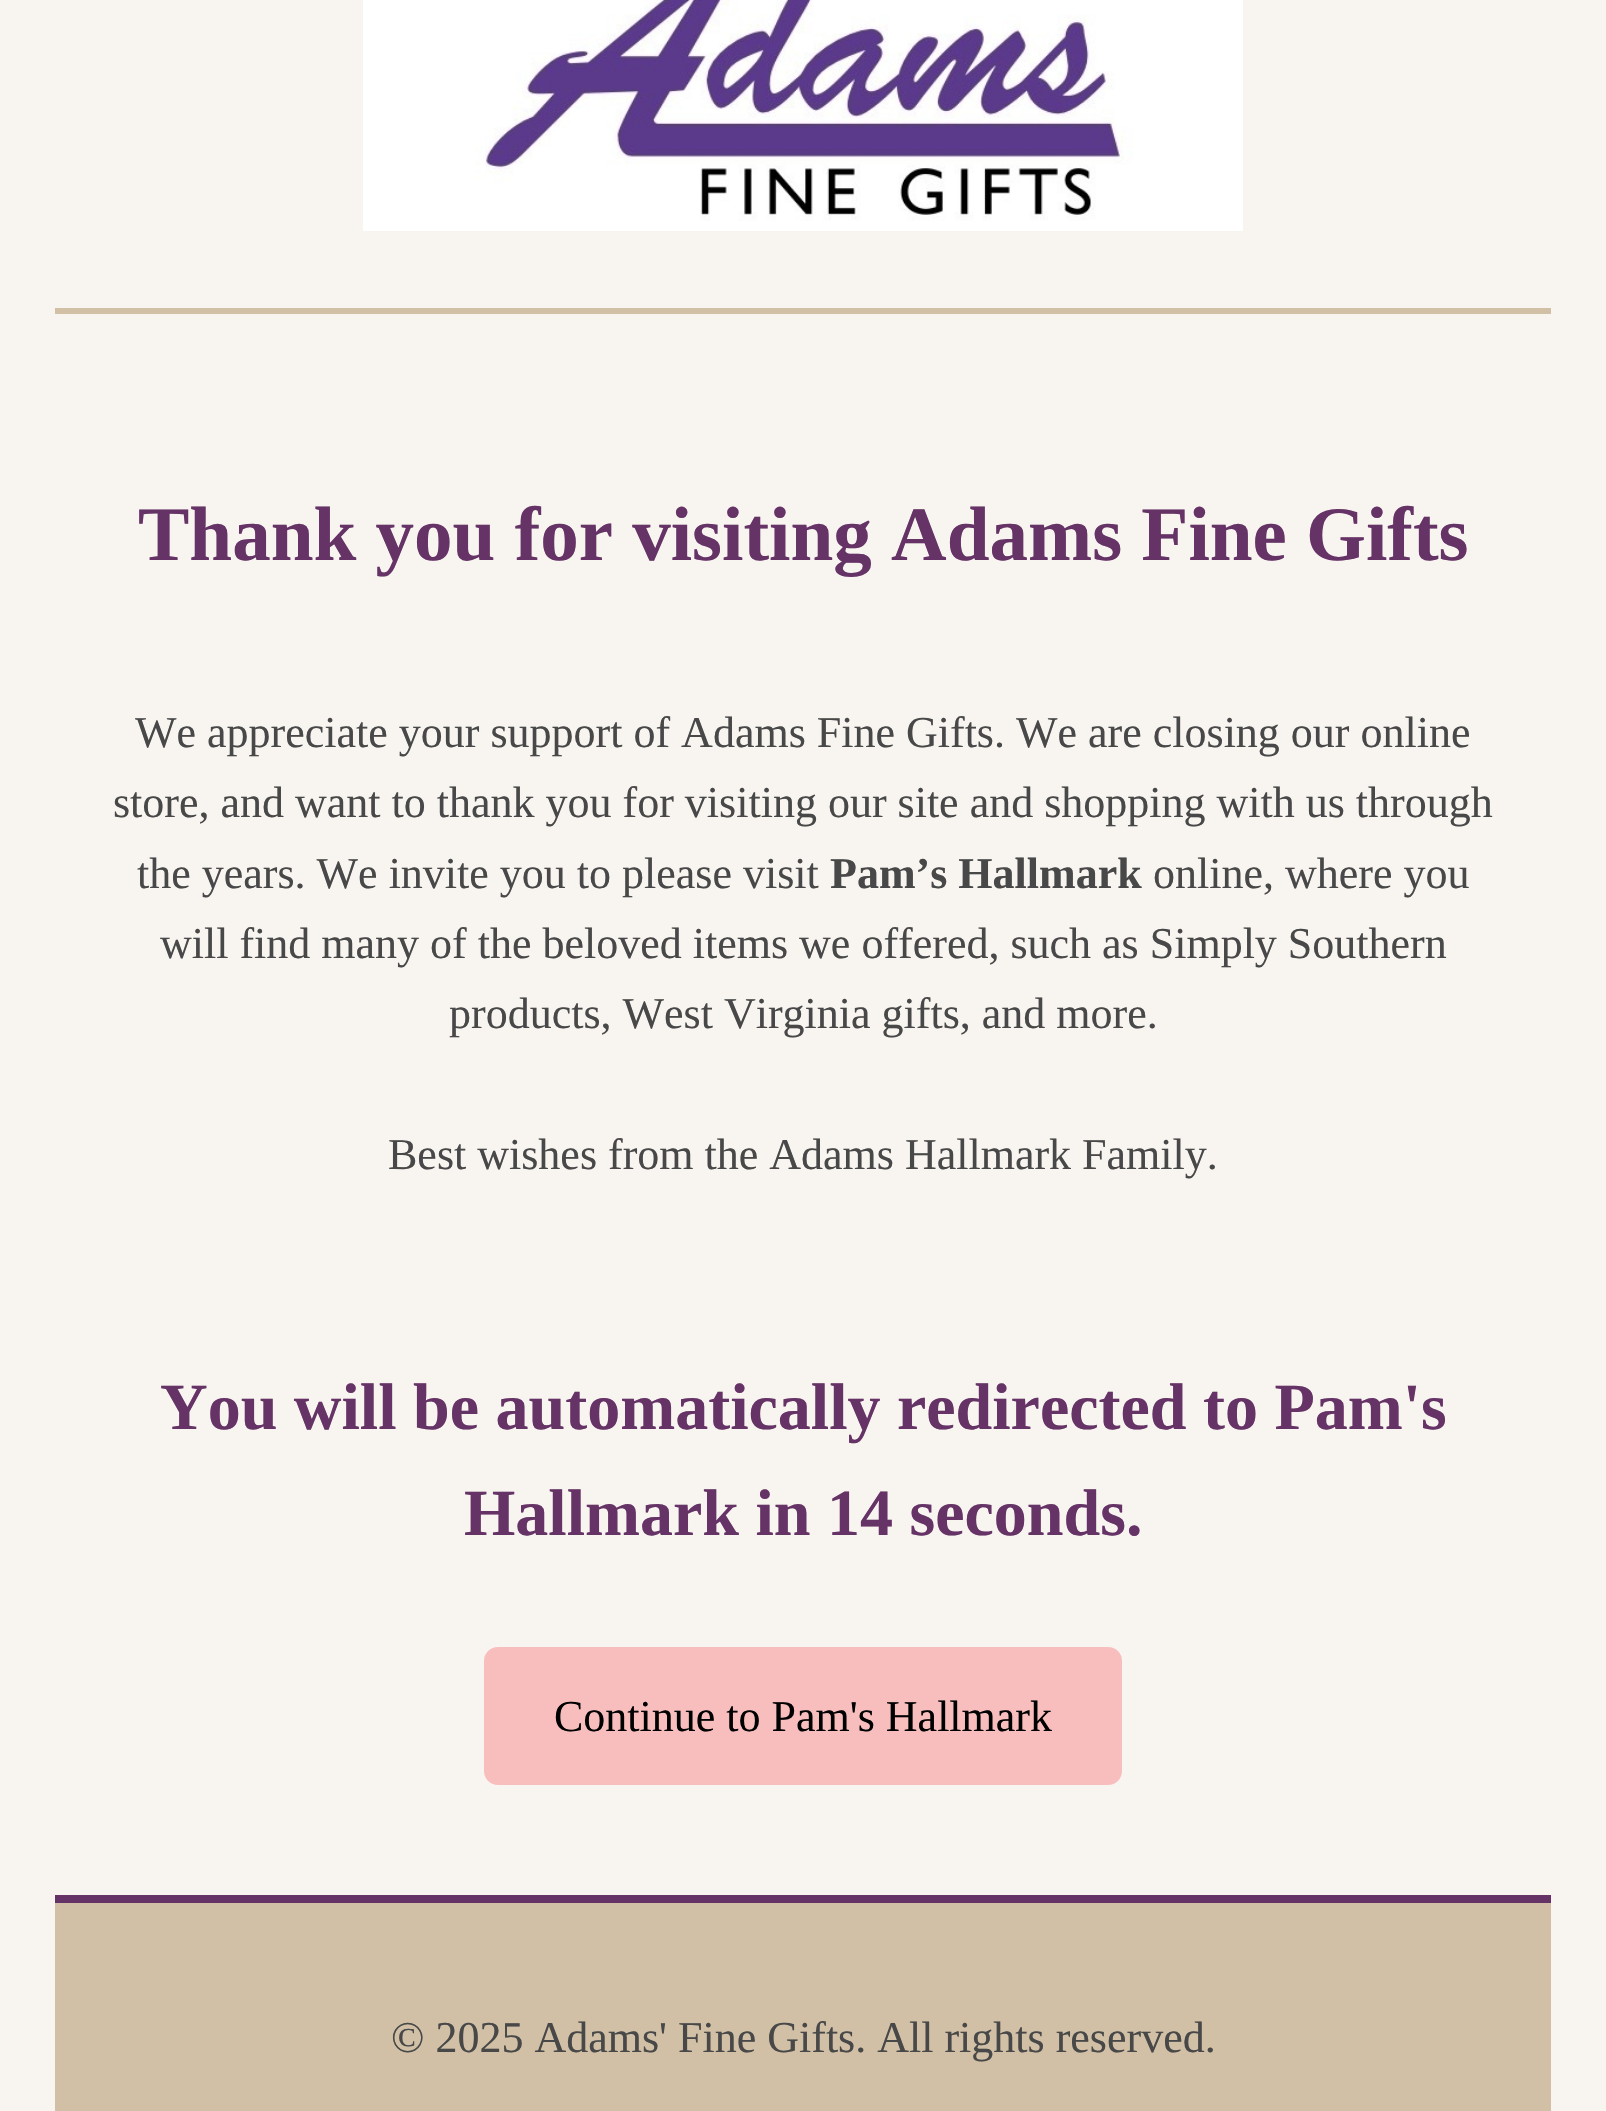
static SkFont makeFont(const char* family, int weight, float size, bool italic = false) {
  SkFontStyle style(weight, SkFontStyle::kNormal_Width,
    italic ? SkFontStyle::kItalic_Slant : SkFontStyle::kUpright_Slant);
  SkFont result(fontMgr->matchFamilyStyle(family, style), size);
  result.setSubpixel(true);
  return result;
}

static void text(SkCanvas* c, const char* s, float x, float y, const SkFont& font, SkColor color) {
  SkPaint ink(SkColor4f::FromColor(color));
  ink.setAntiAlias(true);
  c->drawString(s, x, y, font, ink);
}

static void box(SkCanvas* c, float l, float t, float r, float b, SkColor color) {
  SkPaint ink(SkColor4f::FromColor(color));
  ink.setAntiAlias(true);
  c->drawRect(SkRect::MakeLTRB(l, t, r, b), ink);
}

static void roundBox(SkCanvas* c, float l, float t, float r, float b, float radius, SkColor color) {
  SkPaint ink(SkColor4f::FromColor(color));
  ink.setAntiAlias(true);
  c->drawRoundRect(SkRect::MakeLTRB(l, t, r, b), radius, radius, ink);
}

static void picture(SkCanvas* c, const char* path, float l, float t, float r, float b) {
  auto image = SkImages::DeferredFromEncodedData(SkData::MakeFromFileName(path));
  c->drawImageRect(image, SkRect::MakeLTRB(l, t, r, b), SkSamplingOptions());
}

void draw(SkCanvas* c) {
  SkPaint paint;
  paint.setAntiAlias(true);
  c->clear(0xfff8f5f1);
  box(c, 55, 308, 1551, 314, 0xffd1c0a5);
  picture(c, "img_01.png", 363, 0, 1243, 231);
  SkFont face1 = makeFont("Liberation Serif", 700, 77);
  text(c, "Thank you for visiting Adams Fine Gifts", 138, 560, face1, 0xff663366);
  SkFont face2 = makeFont("Liberation Serif", 400, 44);
  text(c, "We appreciate your support of Adams Fine Gifts. We are closing our online", 135, 747, face2, 0xff484848);
  text(c, "store, and want to thank you for visiting our site and shopping with us through", 113, 817, face2, 0xff484848);
  text(c, "the years. We invite you to please visit", 137, 888, face2, 0xff484848);
  SkFont face3 = makeFont("Liberation Serif", 700, 44);
  text(c, "Pam’s Hallmark", 830, 888, face3, 0xff484848);
  text(c, "online, where you", 1153, 888, face2, 0xff484848);
  text(c, "will find many of the beloved items we offered, such as Simply Southern", 160, 958, face2, 0xff484848);
  text(c, "products, West Virginia gifts, and more.", 449, 1028, face2, 0xff484848);
  text(c, "Best wishes from the Adams Hallmark Family.", 388, 1169, face2, 0xff484848);
  SkFont face4 = makeFont("Liberation Serif", 700, 66);
  text(c, "You will be automatically redirected to Pam's", 160, 1429, face4, 0xff663366);
  text(c, "Hallmark in 14 seconds.", 464, 1535, face4, 0xff663366);
  roundBox(c, 484, 1647, 1122, 1785, 14, 0xfff8bebe);
  text(c, "Continue to Pam's Hallmark", 554, 1731, face2, 0xff000000);
  box(c, 55, 1903, 1551, 2111, 0xffd1c0a5);
  box(c, 55, 1895, 1551, 1903, 0xff663366);
  text(c, "© 2025 Adams' Fine Gifts. All rights reserved.", 391, 2052, face2, 0xff484848);
}
